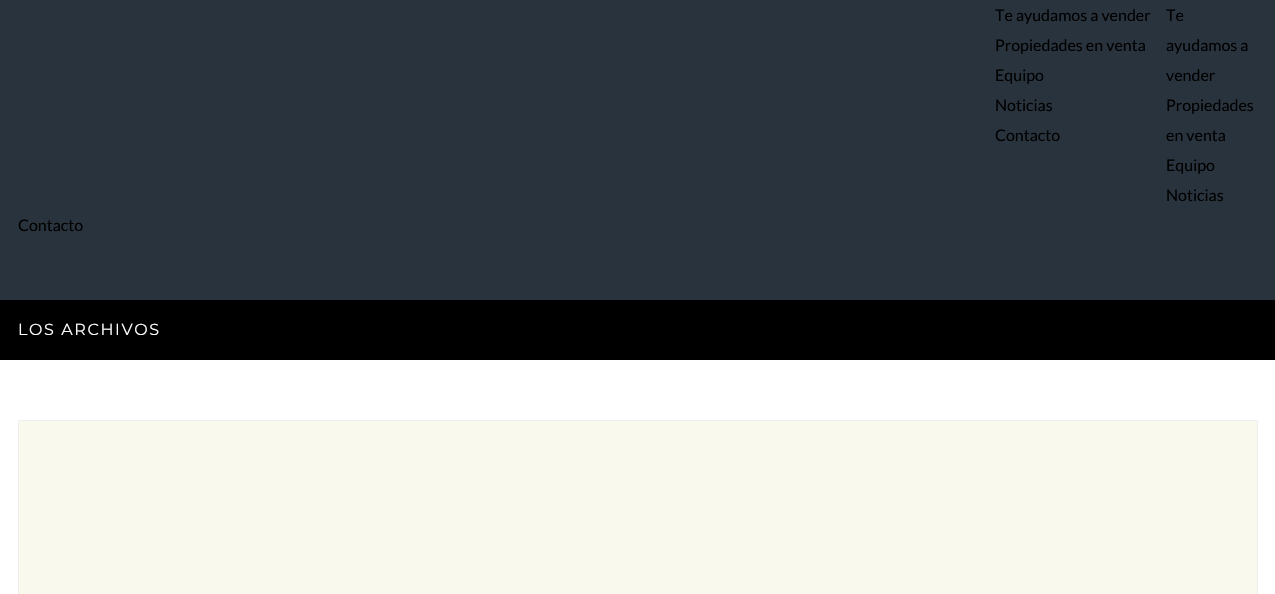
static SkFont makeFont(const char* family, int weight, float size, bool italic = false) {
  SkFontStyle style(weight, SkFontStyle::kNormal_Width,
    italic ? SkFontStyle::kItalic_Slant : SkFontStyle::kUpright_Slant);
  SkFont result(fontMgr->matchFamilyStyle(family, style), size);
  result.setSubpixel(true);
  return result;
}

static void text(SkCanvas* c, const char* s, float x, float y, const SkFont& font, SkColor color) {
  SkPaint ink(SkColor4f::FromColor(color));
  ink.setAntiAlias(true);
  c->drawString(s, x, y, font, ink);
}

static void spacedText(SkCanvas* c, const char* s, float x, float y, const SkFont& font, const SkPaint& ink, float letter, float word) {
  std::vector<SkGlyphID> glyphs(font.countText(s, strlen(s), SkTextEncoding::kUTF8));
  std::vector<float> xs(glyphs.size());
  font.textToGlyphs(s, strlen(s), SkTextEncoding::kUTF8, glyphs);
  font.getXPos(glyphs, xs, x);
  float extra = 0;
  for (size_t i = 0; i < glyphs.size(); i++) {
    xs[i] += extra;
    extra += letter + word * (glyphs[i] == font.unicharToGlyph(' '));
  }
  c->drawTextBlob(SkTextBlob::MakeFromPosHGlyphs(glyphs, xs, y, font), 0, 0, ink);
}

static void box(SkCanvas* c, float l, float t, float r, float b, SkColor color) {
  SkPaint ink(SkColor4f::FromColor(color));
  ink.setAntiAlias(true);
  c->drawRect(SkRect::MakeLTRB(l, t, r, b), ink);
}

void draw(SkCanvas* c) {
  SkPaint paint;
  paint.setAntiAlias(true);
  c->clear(0xffffffff);
  box(c, 0, 0, 1275, 300, 0xff29333d);
  SkFont face1 = makeFont("Lato", 400, 16);
  text(c, "Te", 1166, 21, face1, 0xff000000);
  text(c, "ayudamos a", 1166, 51, face1, 0xff000000);
  text(c, "vender", 1166, 81, face1, 0xff000000);
  text(c, "Propiedades", 1166, 111, face1, 0xff000000);
  text(c, "en venta", 1166, 141, face1, 0xff000000);
  text(c, "Equipo", 1166, 171, face1, 0xff000000);
  text(c, "Noticias", 1166, 201, face1, 0xff000000);
  text(c, "Contacto", 18, 231, face1, 0xff000000);
  text(c, "Te ayudamos a vender", 995, 21, face1, 0xff000000);
  text(c, "Propiedades en venta", 995, 51, face1, 0xff000000);
  text(c, "Equipo", 995, 81, face1, 0xff000000);
  text(c, "Noticias", 995, 111, face1, 0xff000000);
  text(c, "Contacto", 995, 141, face1, 0xff000000);
  box(c, 0, 300, 1275, 360, 0xff000000);
  SkFont face2 = makeFont("Montserrat", 100, 16);
  paint.setColor(0xffffffff);
  spacedText(c, "LOS ARCHIVOS", 18, 335, face2, paint, 1.6f, 0);
  paint.setColor(0xfff9f9ed);
  c->drawRect(SkRect::MakeLTRB(18.5f, 420.5f, 1257.5f, 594.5f), paint);
  paint.setStyle(SkPaint::kStroke_Style);
  paint.setStrokeWidth(1);
  paint.setColor(0xffefefef);
  c->drawRect(SkRect::MakeLTRB(18.5f, 420.5f, 1257.5f, 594.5f), paint);
}
